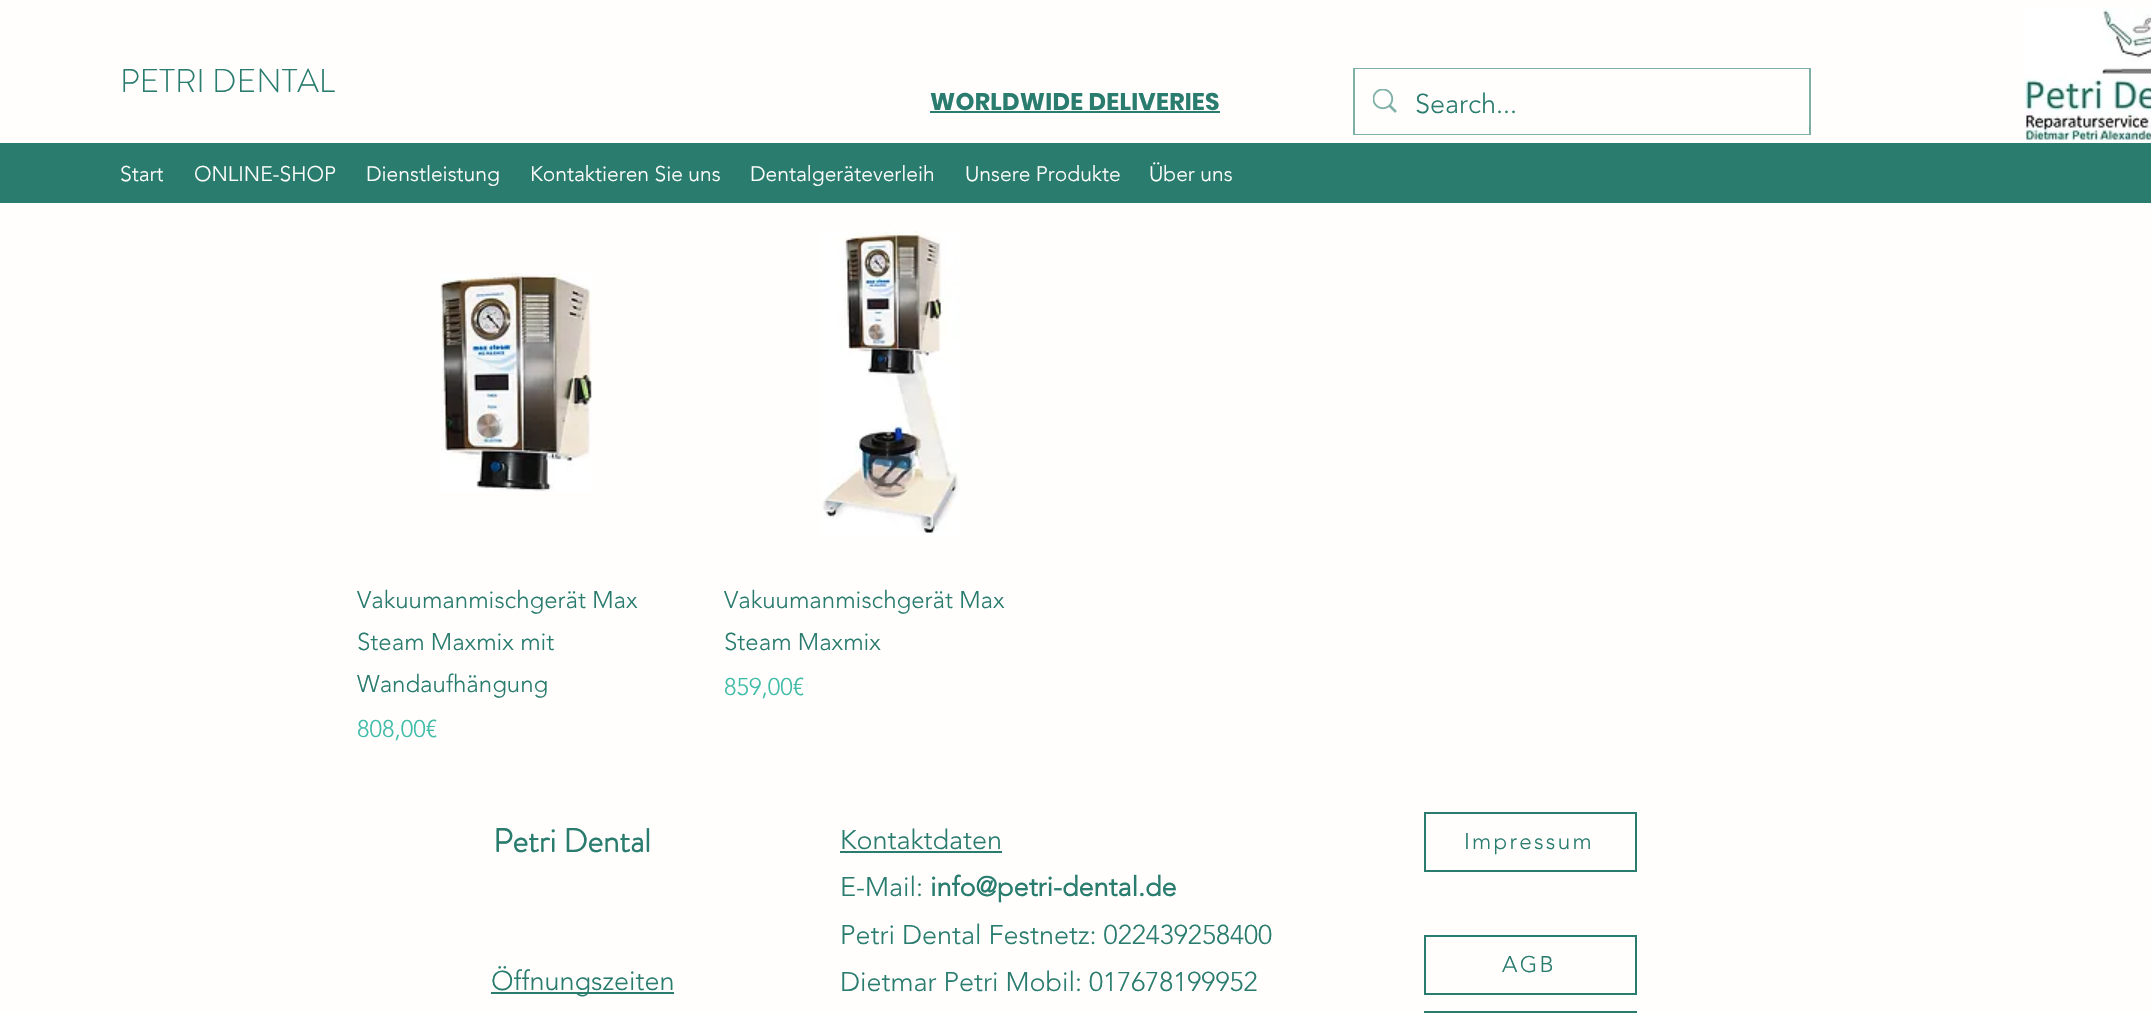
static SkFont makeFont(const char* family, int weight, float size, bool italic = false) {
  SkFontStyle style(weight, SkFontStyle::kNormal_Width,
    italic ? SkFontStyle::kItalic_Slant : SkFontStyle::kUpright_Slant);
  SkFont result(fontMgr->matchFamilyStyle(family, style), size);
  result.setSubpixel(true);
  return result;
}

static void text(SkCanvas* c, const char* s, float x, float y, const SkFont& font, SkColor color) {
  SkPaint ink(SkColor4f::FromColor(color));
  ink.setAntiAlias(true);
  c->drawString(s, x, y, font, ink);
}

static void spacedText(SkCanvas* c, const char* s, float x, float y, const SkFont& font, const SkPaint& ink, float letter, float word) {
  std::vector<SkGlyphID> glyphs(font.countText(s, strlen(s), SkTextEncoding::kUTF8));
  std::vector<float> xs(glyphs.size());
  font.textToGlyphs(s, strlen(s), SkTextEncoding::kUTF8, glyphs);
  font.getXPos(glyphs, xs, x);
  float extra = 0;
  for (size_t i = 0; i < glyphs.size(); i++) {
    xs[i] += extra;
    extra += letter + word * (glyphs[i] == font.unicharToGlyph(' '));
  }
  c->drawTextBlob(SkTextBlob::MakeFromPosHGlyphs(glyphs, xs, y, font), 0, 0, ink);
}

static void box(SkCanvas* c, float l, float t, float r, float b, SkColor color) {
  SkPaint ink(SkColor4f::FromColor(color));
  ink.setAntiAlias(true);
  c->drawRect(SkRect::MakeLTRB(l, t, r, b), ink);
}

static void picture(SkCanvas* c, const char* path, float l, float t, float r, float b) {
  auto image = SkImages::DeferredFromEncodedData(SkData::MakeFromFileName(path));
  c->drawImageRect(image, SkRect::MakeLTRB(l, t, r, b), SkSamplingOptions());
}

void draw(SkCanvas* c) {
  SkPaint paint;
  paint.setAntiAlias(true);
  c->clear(0xfffffefc);
  SkFont face1 = makeFont("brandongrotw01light", 300, 33);
  text(c, "PETRI DENTAL", 120, 92, face1, 0xff2a7c6f);
  picture(c, "img_01.png", 2024, 8, 2151, 141);
  SkFont face2 = makeFont("Poppins", 700, 24);
  paint.setColor(0xff2a7c6f);
  spacedText(c, "WORLDWIDE DELIVERIES", 930, 110, face2, paint, 0.25f, 0);
  box(c, 930, 111, 1220, 113, 0xff2a7c6f);
  picture(c, "img_03.png", 1809, 126, 1810, 130);
  paint.setStyle(SkPaint::kStroke_Style);
  paint.setStrokeWidth(2);
  paint.setColor(0x992a7c6f);
  c->drawRect(SkRect::MakeLTRB(1354, 69, 1810, 134), paint);
  box(c, 1355, 69, 1809, 134, 0xfffffefc);
  picture(c, "img_02.png", 1373, 89, 1397, 113);
  SkFont face3 = makeFont("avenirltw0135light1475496", 300, 27);
  text(c, "Search...", 1415, 113, face3, 0xff2a7c6f);
  box(c, 0, 143, 2151, 203, 0xff2a7c6f);
  SkFont face4 = makeFont("avenirltw0135light1475496", 300, 21);
  text(c, "Start", 120, 181, face4, 0xfffffefc);
  text(c, "ONLINE-SHOP", 194, 181, face4, 0xfffffefc);
  text(c, "Dienstleistung", 366, 181, face4, 0xfffffefc);
  text(c, "Kontaktieren Sie uns", 530, 181, face4, 0xfffffefc);
  text(c, "Dentalgeräteverleih", 750, 181, face4, 0xfffffefc);
  text(c, "Unsere Produkte", 965, 181, face4, 0xfffffefc);
  text(c, "Über uns", 1149, 181, face4, 0xfffffefc);
  picture(c, "img_04.png", 440, 273, 592, 492);
  SkFont face5 = makeFont("avenirltw0135light1475496", 300, 24);
  text(c, "Vakuumanmischgerät Max", 357, 608, face5, 0xff2a7c6f);
  text(c, "Steam Maxmix mit", 357, 650, face5, 0xff2a7c6f);
  text(c, "Wandaufhängung", 357, 692, face5, 0xff2a7c6f);
  text(c, "808,00€", 357, 737, face5, 0xff40bca8);
  picture(c, "img_05.png", 821, 231, 960, 537);
  text(c, "Vakuumanmischgerät Max", 724, 608, face5, 0xff2a7c6f);
  text(c, "Steam Maxmix", 724, 650, face5, 0xff2a7c6f);
  text(c, "859,00€", 724, 695, face5, 0xff40bca8);
  SkFont face6 = makeFont("brandongrotw01light", 700, 33);
  text(c, "Petri Dental", 493, 852, face6, 0xff2a7c6f);
  text(c, "Kontaktdaten", 840, 849, face3, 0xff2a7c6f);
  box(c, 840, 851, 1002, 853, 0xff2a7c6f);
  text(c, "E-Mail:", 840, 896, face3, 0xff2a7c6f);
  SkFont face7 = makeFont("avenirltw0135light1475496", 700, 27);
  text(c, "info@petri-dental.de", 930, 896, face7, 0xff2a7c6f);
  text(c, "Petri Dental Festnetz: 022439258400", 840, 944, face3, 0xff2a7c6f);
  text(c, "Dietmar Petri Mobil: 017678199952", 840, 991, face3, 0xff2a7c6f);
  paint.setColor(0xff2a7c6f);
  c->drawRect(SkRect::MakeLTRB(1425, 813, 1636, 871), paint);
  SkFont face8 = makeFont("avenirltw0135light1475496", 300, 22.5f);
  paint.setStyle(SkPaint::kFill_Style);
  spacedText(c, "Impressum", 1464, 849, face8, paint, 2.25f, 0);
  paint.setStyle(SkPaint::kStroke_Style);
  c->drawRect(SkRect::MakeLTRB(1425, 936, 1636, 994), paint);
  paint.setStyle(SkPaint::kFill_Style);
  spacedText(c, "AGB", 1502, 972, face8, paint, 2.25f, 0);
  box(c, 491, 992, 674, 994, 0xff2a7c6f);
  text(c, "Öffnungszeiten", 491, 990, face3, 0xff2a7c6f);
  paint.setStyle(SkPaint::kStroke_Style);
  c->drawRect(SkRect::MakeLTRB(1425, 1012, 1636, 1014), paint);
}
